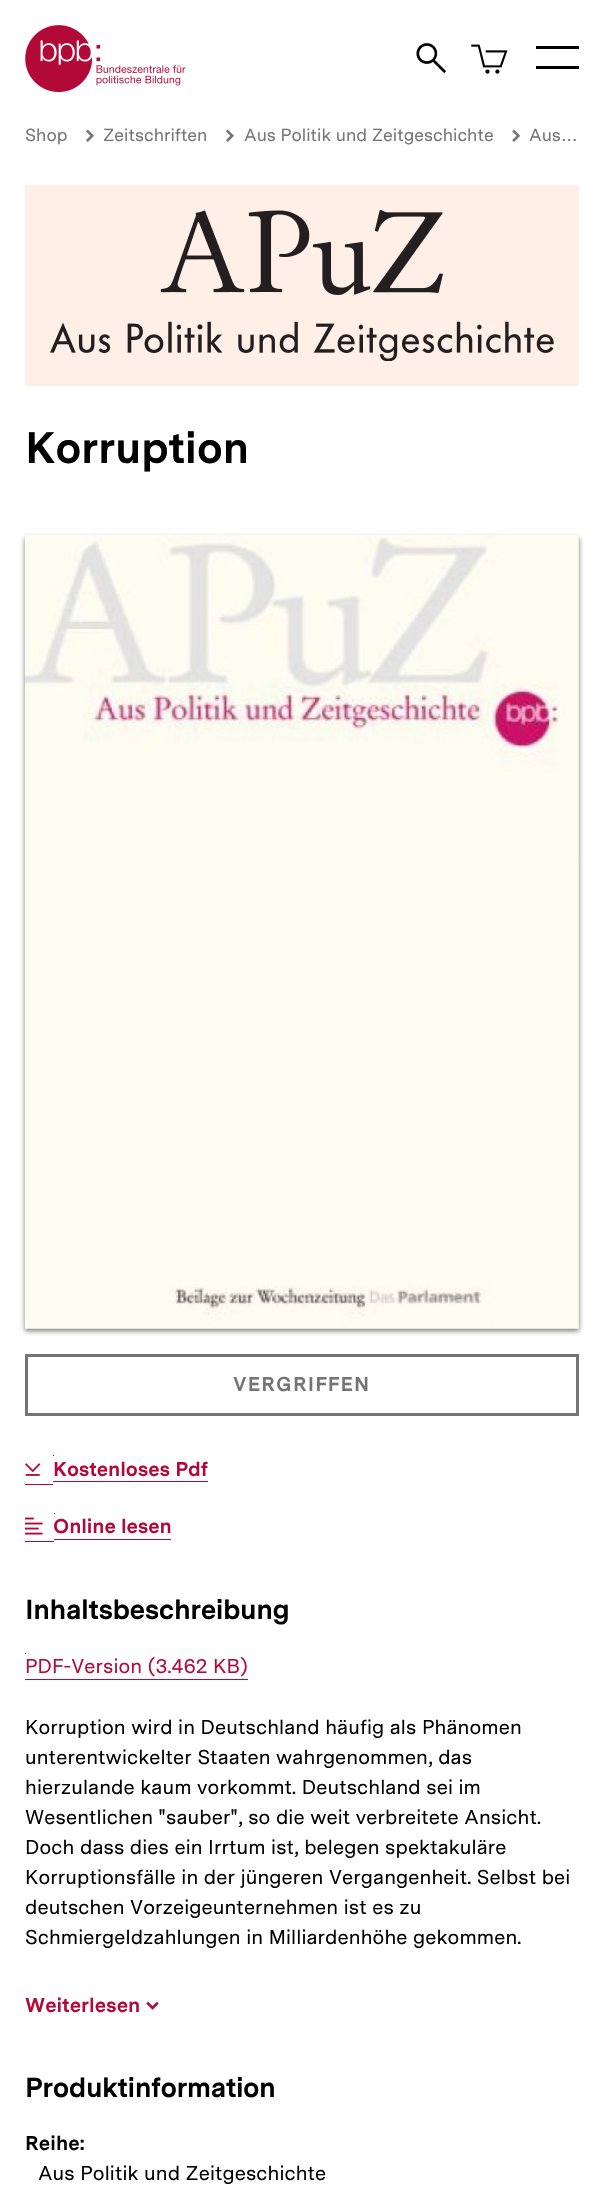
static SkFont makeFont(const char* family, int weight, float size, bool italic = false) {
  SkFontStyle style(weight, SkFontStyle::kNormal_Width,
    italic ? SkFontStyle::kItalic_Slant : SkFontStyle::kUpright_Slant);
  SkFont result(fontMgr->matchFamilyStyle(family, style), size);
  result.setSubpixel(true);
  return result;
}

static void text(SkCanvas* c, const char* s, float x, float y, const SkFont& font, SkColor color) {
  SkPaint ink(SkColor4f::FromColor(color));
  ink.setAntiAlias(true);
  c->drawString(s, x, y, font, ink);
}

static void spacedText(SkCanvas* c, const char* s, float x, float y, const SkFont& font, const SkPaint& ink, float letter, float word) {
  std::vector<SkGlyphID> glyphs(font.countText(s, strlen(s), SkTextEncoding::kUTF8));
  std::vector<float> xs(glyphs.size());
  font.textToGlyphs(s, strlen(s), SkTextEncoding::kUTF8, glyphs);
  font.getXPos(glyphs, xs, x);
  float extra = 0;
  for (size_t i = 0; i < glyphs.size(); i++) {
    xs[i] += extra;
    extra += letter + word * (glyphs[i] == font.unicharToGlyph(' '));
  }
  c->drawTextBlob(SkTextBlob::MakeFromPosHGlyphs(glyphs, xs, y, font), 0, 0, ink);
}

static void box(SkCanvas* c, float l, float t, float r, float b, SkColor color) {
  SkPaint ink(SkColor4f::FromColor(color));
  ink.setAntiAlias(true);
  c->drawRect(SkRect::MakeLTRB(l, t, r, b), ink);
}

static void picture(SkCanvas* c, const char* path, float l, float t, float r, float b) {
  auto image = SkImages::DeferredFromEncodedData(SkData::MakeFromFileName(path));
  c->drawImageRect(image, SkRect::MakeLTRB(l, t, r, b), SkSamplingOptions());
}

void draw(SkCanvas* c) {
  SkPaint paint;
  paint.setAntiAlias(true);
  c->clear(0xffffffff);
  picture(c, "img_01.png", 25, 25, 186, 93);
  picture(c, "img_02.png", 416, 43, 446, 73);
  picture(c, "img_03.png", 471, 44, 508, 74);
  box(c, 536, 46, 579, 49, 0xff000000);
  box(c, 536, 66, 579, 69, 0xff000000);
  SkFont face1 = makeFont("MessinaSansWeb", 400, 17.5f);
  text(c, "Shop", 25, 141, face1, 0xff757575);
  picture(c, "img_04.png", 86, 129, 94, 142);
  text(c, "Zeitschriften", 103, 141, face1, 0xff757575);
  picture(c, "img_04.png", 226, 129, 234, 142);
  text(c, "Aus Politik und Zeitgeschichte", 244, 141, face1, 0xff757575);
  picture(c, "img_05.png", 512, 129, 521, 142);
  text(c, "Aus…", 529, 141, face1, 0xff757575);
  box(c, 25, 185, 579, 386, 0xffffefe7);
  picture(c, "img_06.png", 50, 210, 554, 361);
  SkFont face2 = makeFont("MessinaSansWeb", 700, 43.75f);
  paint.setColor(0xff000000);
  spacedText(c, "Korruption", 25, 463, face2, paint, -0.4f, 0);
  paint.setColor(0x80000000);
  paint.setMaskFilter(SkMaskFilter::MakeBlur(kNormal_SkBlurStyle, 2.5f));
  c->drawRect(SkRect::MakeLTRB(25, 538, 579, 1331), paint);
  paint.setMaskFilter(nullptr);
  picture(c, "img_07.png", 25, 535, 579, 1329);
  paint.setStyle(SkPaint::kStroke_Style);
  paint.setStrokeWidth(3);
  paint.setColor(0xff757575);
  c->drawRect(SkRect::MakeLTRB(26.5f, 1355.5f, 577.5f, 1414.5f), paint);
  SkFont face3 = makeFont("MessinaSansWeb", 700, 20);
  paint.setStyle(SkPaint::kFill_Style);
  spacedText(c, "VERGRIFFEN", 233, 1391, face3, paint, 1.1f, 0);
  box(c, 25, 1484, 53, 1485, 0xffb20938);
  box(c, 53, 1455, 54, 1456, 0xffb20938);
  box(c, 53, 1481, 208, 1482, 0xffb20938);
  picture(c, "img_08.png", 25, 1463, 41, 1476);
  paint.setColor(0xffb20938);
  spacedText(c, "Kostenloses Pdf", 53, 1476, face3, paint, -0.1f, 0);
  box(c, 25, 1541, 54, 1542, 0xffb20938);
  box(c, 54, 1513, 55, 1514, 0xffb20938);
  box(c, 54, 1539, 171, 1540, 0xffb20938);
  picture(c, "img_09.png", 25, 1517, 43, 1535);
  spacedText(c, "Online lesen", 53, 1533, face3, paint, -0.1f, 0);
  SkFont face4 = makeFont("MessinaSansWeb", 700, 27.5f);
  paint.setColor(0xff000000);
  spacedText(c, "Inhaltsbeschreibung", 25, 1619, face4, paint, -0.5f, 0);
  SkFont face5 = makeFont("MessinaSansWeb", 400, 20);
  paint.setColor(0xffb20938);
  spacedText(c, "PDF-Version (3.462 KB)", 25, 1673, face5, paint, 0.1f, 0);
  box(c, 25, 1653, 26, 1654, 0xffb20938);
  box(c, 25, 1679, 248, 1680, 0xffb20938);
  paint.setColor(0xff000000);
  spacedText(c, "Korruption wird in Deutschland häufig als Phänomen", 25, 1734, face5, paint, 0.1f, 0);
  spacedText(c, "unterentwickelter Staaten wahrgenommen, das", 25, 1764, face5, paint, 0.1f, 0);
  spacedText(c, "hierzulande kaum vorkommt. Deutschland sei im", 25, 1794, face5, paint, 0.1f, 0);
  spacedText(c, "Wesentlichen \"sauber\", so die weit verbreitete Ansicht.", 25, 1824, face5, paint, 0.1f, 0);
  spacedText(c, "Doch dass dies ein Irrtum ist, belegen spektakuläre", 25, 1854, face5, paint, 0.1f, 0);
  spacedText(c, "Korruptionsfälle in der jüngeren Vergangenheit. Selbst bei", 25, 1884, face5, paint, 0.1f, 0);
  spacedText(c, "deutschen Vorzeigeunternehmen ist es zu", 25, 1914, face5, paint, 0.1f, 0);
  spacedText(c, "Schmiergeldzahlungen in Milliardenhöhe gekommen.", 25, 1944, face5, paint, 0.1f, 0);
  text(c, "Weiterlesen", 25, 2012, face3, 0xffb20938);
  picture(c, "img_10.png", 146, 2001, 159, 2010);
  spacedText(c, "Produktinformation", 25, 2097, face4, paint, -0.5f, 0);
  spacedText(c, "Reihe:", 25, 2150, face3, paint, 0.1f, 0);
  spacedText(c, "Aus Politik und Zeitgeschichte", 38, 2180, face5, paint, 0.1f, 0);
}
